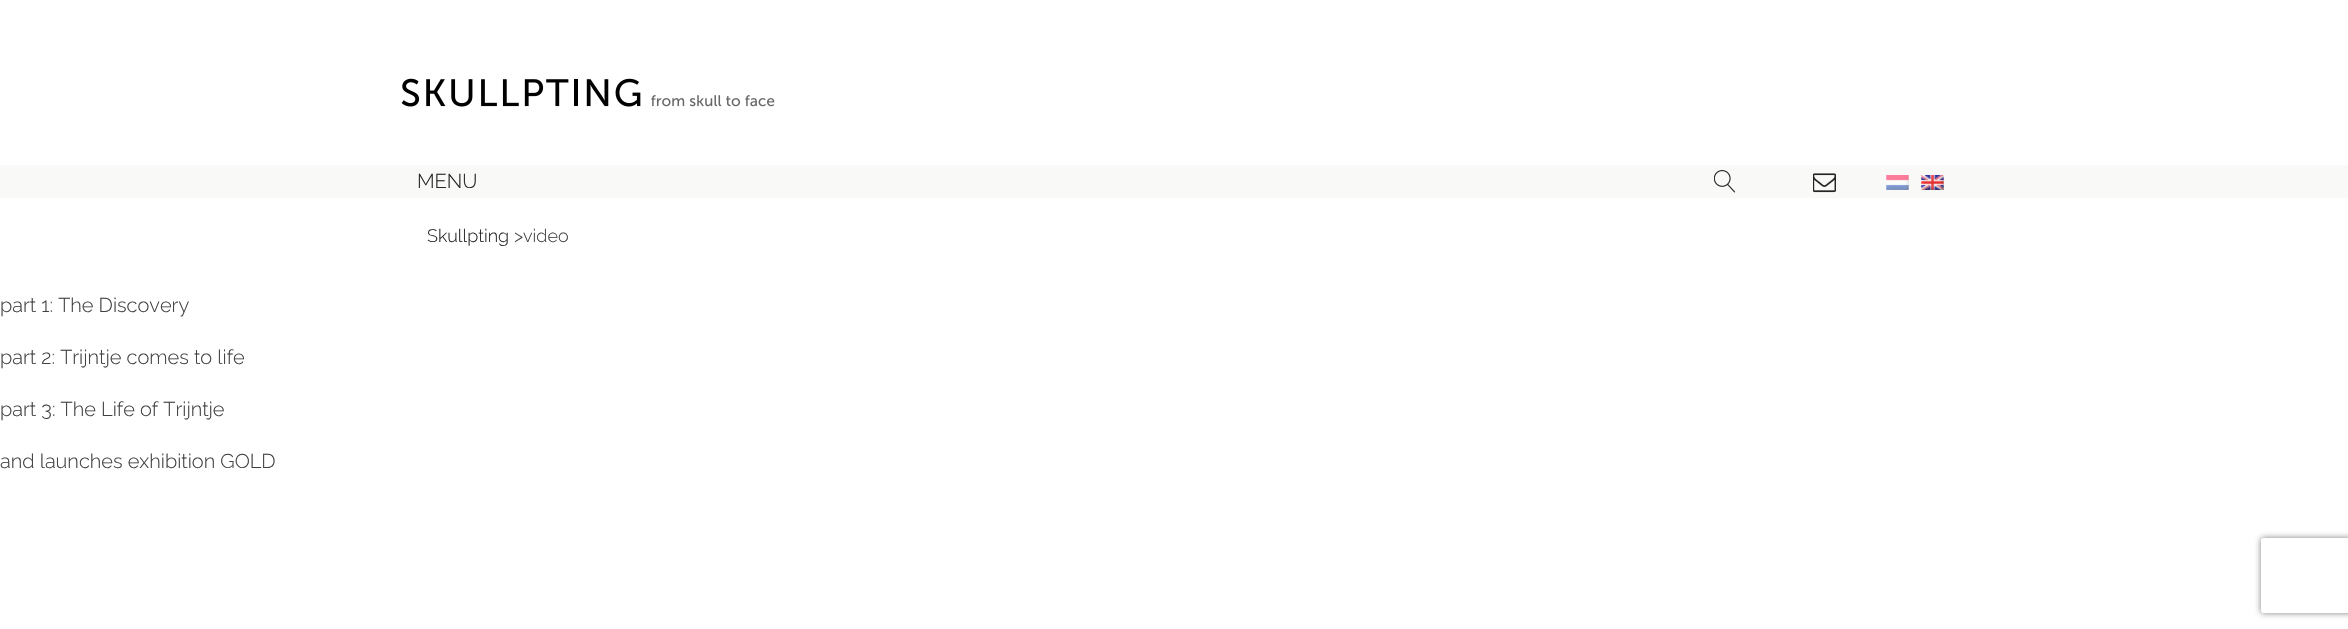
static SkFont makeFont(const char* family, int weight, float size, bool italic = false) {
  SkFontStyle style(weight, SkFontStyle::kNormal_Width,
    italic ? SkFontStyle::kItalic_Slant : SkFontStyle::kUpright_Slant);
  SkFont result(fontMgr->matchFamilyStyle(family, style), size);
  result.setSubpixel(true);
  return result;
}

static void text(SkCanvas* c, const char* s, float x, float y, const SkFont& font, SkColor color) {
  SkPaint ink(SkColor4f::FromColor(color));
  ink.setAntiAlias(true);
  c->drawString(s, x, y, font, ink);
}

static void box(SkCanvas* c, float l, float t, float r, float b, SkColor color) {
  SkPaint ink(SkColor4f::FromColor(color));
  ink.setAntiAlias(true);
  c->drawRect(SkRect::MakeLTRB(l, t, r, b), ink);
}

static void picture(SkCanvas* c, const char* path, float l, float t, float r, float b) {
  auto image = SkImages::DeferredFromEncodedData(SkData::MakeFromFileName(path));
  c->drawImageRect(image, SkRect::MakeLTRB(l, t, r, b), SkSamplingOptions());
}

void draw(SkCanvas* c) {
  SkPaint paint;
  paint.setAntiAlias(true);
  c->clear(0xffffffff);
  picture(c, "img_01.png", 401, 78, 775, 107);
  box(c, 0, 165, 2348, 198, 0xfff9f9f8);
  SkFont face1 = makeFont("Raleway", 300, 20);
  text(c, "MENU", 417, 188, face1, 0xff252525);
  picture(c, "img_02.png", 1714, 170, 1736, 193);
  picture(c, "img_03.png", 1813, 173, 1836, 193);
  picture(c, "img_04.png", 1886, 175, 1909, 190);
  picture(c, "img_05.png", 1921, 175, 1944, 190);
  SkFont face2 = makeFont("Raleway", 300, 18);
  text(c, "Skullpting", 427, 242, face2, 0xff252525);
  text(c, ">video", 514, 242, face2, 0xff404040);
  text(c, "part 1: The Discovery", 0, 312, face1, 0xff404040);
  text(c, "part 2: Trijntje comes to life", 0, 364, face1, 0xff404040);
  text(c, "part 3: The Life of Trijntje", 0, 416, face1, 0xff404040);
  text(c, "and launches exhibition GOLD", 0, 468, face1, 0xff404040);
  c->save();
  c->clipPath(SkPathBuilder(SkPathFillType::kEvenOdd).moveTo(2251, 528).lineTo(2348, 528).lineTo(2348, 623).lineTo(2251, 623).close().moveTo(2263.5f, 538).lineTo(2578.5f, 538).cubicTo(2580, 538, 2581, 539, 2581, 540.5f).lineTo(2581, 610.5f).cubicTo(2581, 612, 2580, 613, 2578.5f, 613).lineTo(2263.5f, 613).cubicTo(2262, 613, 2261, 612, 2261, 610.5f).lineTo(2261, 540.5f).cubicTo(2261, 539, 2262, 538, 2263.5f, 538).close().detach(), true);
  paint.setColor(0xff808080);
  paint.setMaskFilter(SkMaskFilter::MakeBlur(kNormal_SkBlurStyle, 3));
  c->drawRoundRect(SkRect::MakeLTRB(2261, 538, 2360, 613), 2.5f, 2.5f, paint);
  paint.setMaskFilter(nullptr);
  c->restore();
}
